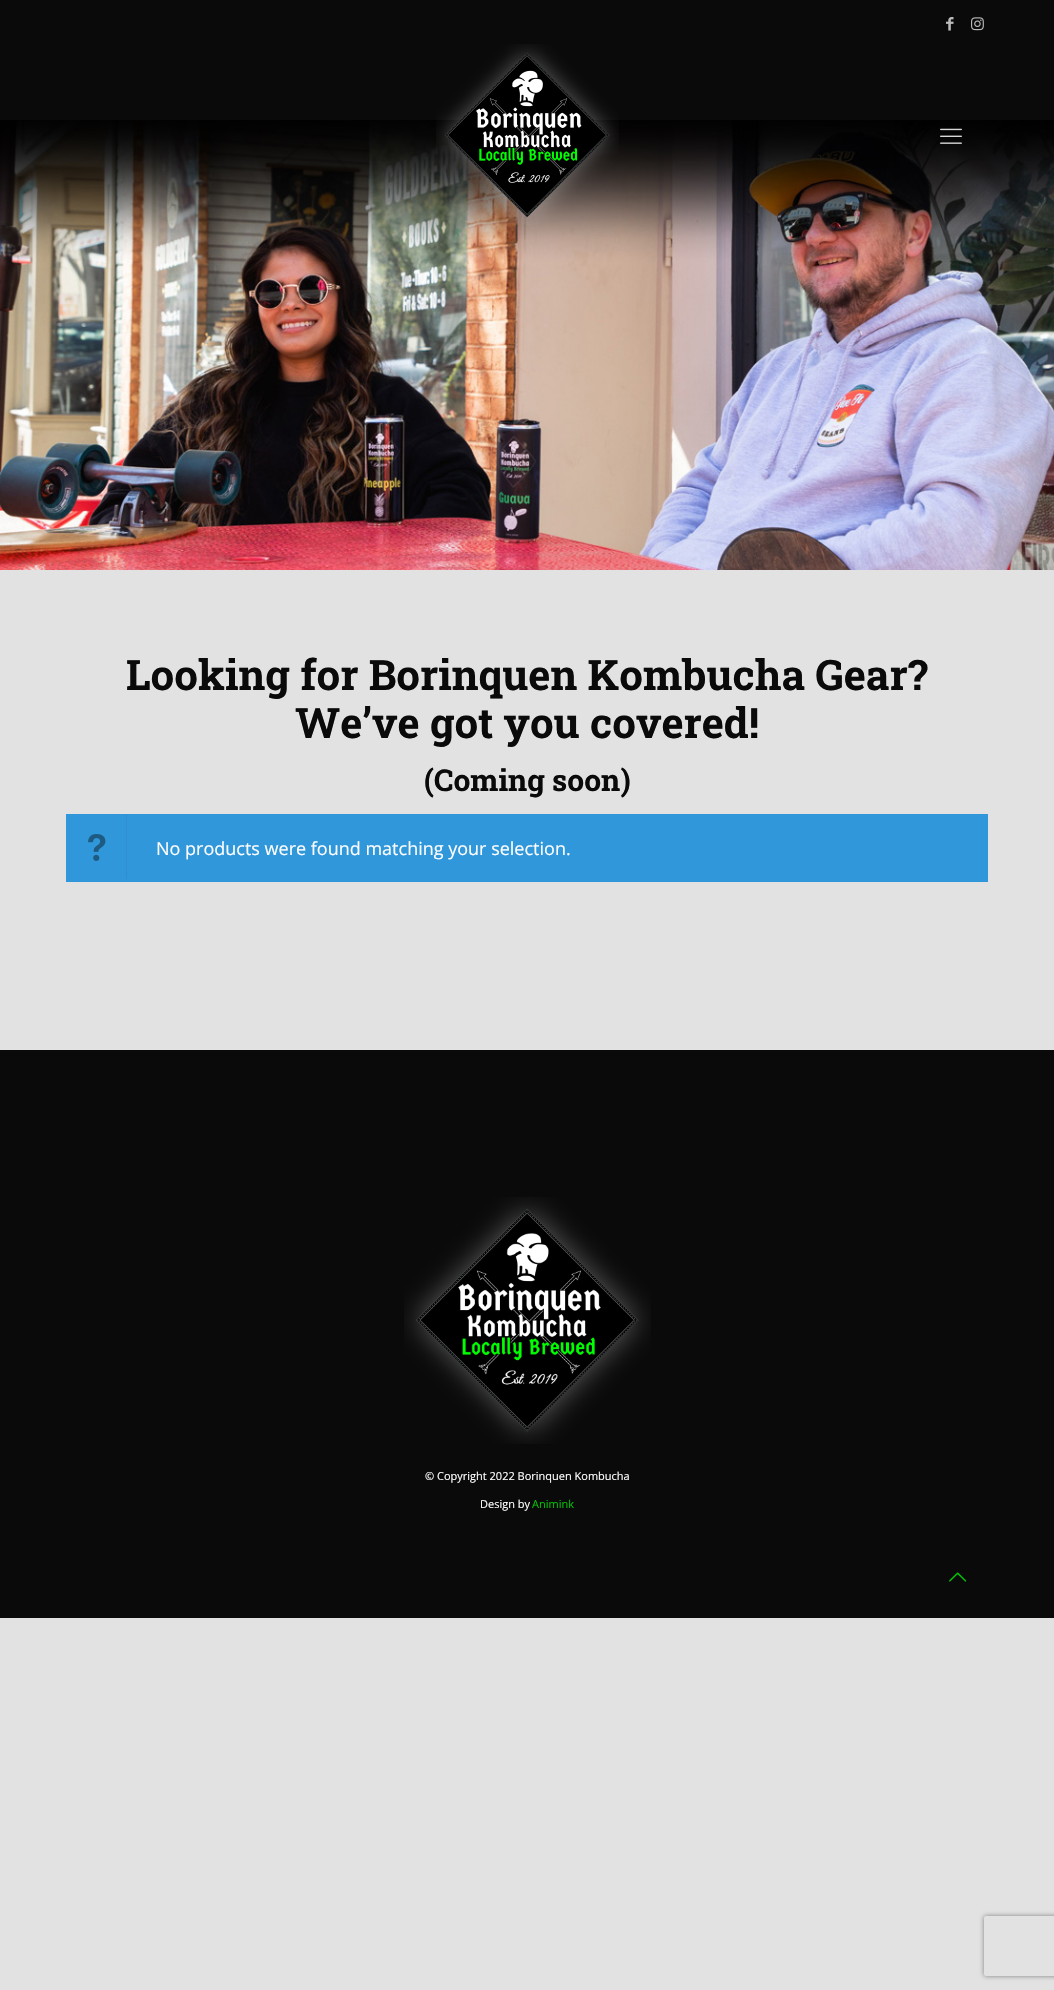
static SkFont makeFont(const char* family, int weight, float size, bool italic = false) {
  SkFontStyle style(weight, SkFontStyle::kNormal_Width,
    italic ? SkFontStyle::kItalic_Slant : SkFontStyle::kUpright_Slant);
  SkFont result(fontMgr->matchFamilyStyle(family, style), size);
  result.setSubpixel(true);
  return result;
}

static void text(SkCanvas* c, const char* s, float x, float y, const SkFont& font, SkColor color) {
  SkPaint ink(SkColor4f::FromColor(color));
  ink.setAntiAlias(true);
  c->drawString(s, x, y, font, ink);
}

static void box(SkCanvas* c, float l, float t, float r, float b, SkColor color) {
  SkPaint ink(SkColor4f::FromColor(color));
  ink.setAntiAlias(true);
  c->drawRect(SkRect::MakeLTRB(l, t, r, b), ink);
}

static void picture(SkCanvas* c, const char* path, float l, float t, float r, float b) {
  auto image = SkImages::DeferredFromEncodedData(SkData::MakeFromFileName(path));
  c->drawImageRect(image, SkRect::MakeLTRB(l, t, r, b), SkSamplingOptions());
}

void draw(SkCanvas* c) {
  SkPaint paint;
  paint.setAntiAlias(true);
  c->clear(0xffe2e2e2);
  box(c, 0, 0, 1054, 120, 0xff0a0a0a);
  picture(c, "img_01.png", 946, 17, 954, 31);
  picture(c, "img_02.png", 971, 17, 984, 31);
  picture(c, "img_05.png", 0, 120, 1054, 570);
  picture(c, "img_03.png", 436, 44, 619, 225);
  picture(c, "img_04.png", 940, 128, 962, 144);
  SkFont face1 = makeFont("Roboto Slab", 700, 42);
  text(c, "Looking for Borinquen Kombucha Gear?", 126, 690, face1, 0xff0a0a0a);
  text(c, "We’ve got you covered!", 295, 738, face1, 0xff0a0a0a);
  SkFont face2 = makeFont("Roboto Slab", 700, 30);
  text(c, "(Coming soon)", 424, 791, face2, 0xff0a0a0a);
  box(c, 66, 814, 988, 882, 0xff3097db);
  box(c, 126, 814, 127, 879, 0xff2e8fd0);
  picture(c, "img_06.png", 88, 834, 106, 861);
  SkFont face3 = makeFont("Open Sans", 400, 18);
  text(c, "No products were found matching your selection.", 156, 855, face3, 0xffffffff);
  box(c, 0, 1050, 1054, 1618, 0xff0a0a0a);
  picture(c, "img_07.png", 404, 1197, 651, 1444);
  SkFont face4 = makeFont("Open Sans", 400, 11);
  text(c, "© Copyright 2022 Borinquen Kombucha", 425, 1480, face4, 0xffffffff);
  text(c, "Design by", 480, 1508, face4, 0xffffffff);
  text(c, "Animink", 532, 1508, face4, 0xff02c302);
  picture(c, "img_08.png", 949, 1572, 967, 1582);
  c->save();
  c->clipPath(SkPathBuilder(SkPathFillType::kEvenOdd).moveTo(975, 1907).lineTo(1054, 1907).lineTo(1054, 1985).lineTo(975, 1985).close().moveTo(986, 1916).lineTo(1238, 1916).cubicTo(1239, 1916, 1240, 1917, 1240, 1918).lineTo(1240, 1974).cubicTo(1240, 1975, 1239, 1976, 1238, 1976).lineTo(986, 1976).cubicTo(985, 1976, 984, 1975, 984, 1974).lineTo(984, 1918).cubicTo(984, 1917, 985, 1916, 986, 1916).close().detach(), true);
  paint.setColor(0xff808080);
  paint.setMaskFilter(SkMaskFilter::MakeBlur(kNormal_SkBlurStyle, 2.5f));
  c->drawRoundRect(SkRect::MakeLTRB(984, 1916, 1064, 1976), 2, 2, paint);
  paint.setMaskFilter(nullptr);
  c->restore();
}
